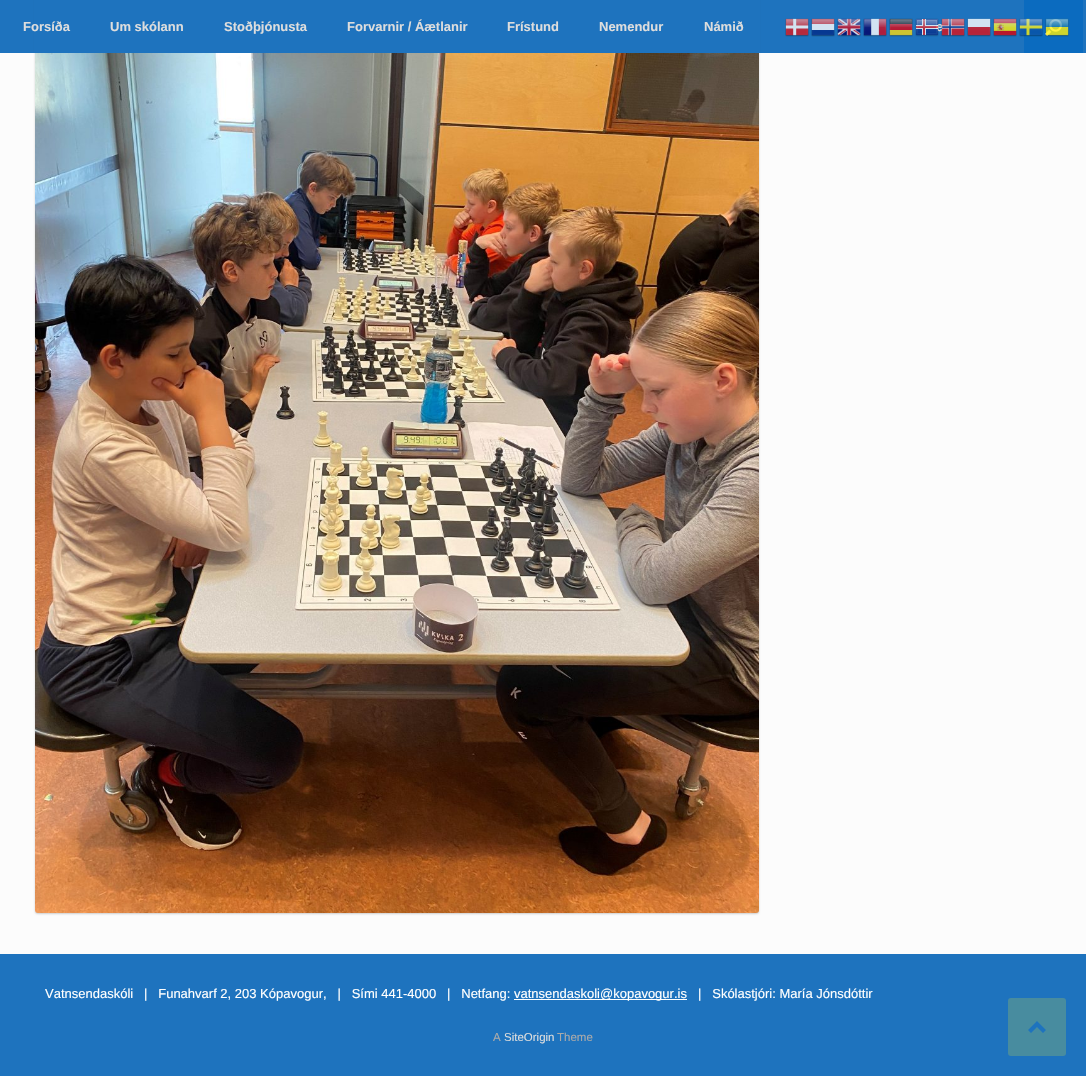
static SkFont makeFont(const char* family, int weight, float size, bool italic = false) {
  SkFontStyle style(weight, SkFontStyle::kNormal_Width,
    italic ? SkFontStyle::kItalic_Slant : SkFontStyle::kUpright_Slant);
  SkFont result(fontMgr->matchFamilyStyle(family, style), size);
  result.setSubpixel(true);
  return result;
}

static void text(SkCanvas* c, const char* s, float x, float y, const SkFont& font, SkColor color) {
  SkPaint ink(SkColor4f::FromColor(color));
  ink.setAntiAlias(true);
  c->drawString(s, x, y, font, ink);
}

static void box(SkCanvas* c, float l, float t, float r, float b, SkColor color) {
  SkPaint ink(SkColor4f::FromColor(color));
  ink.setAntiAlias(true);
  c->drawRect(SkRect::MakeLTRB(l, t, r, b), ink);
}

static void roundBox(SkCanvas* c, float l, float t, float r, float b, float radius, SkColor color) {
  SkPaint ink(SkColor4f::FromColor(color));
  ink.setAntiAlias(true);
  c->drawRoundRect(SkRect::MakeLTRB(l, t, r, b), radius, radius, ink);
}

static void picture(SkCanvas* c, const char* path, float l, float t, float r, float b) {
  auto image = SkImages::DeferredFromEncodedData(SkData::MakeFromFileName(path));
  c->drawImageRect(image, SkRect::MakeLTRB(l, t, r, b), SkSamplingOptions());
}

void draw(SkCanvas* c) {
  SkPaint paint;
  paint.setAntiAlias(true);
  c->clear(0xff1e73be);
  picture(c, "img_01.png", 785, 18, 809, 37);
  picture(c, "img_02.png", 811, 18, 835, 37);
  picture(c, "img_03.png", 837, 18, 861, 37);
  picture(c, "img_04.png", 863, 18, 887, 37);
  picture(c, "img_05.png", 889, 18, 913, 37);
  SkFont face1 = makeFont("Liberation Sans", 700, 13);
  text(c, "e", 936, 31, face1, 0xffdddddd);
  picture(c, "img_06.png", 915, 18, 939, 37);
  picture(c, "img_07.png", 941, 18, 965, 37);
  picture(c, "img_08.png", 967, 18, 991, 37);
  picture(c, "img_09.png", 993, 18, 1017, 37);
  box(c, 1024, 0, 1083, 53, 0xff0b6bbf);
  picture(c, "img_10.png", 1019, 18, 1043, 37);
  picture(c, "img_13.png", 1045, 19, 1062, 36);
  picture(c, "img_11.png", 1045, 18, 1069, 37);
  box(c, 0, 53, 1086, 954, 0xfffcfcfc);
  paint.setColor(0x2e000000);
  paint.setMaskFilter(SkMaskFilter::MakeBlur(kNormal_SkBlurStyle, 1));
  c->drawRoundRect(SkRect::MakeLTRB(35, -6, 759, 914), 3, 3, paint);
  paint.setMaskFilter(nullptr);
  picture(c, "img_12.png", 35, 53, 759, 913);
  box(c, 34, 0, 760, 53, 0xff1e73be);
  text(c, "Forsíða", 23, 31, face1, 0xffdddddd);
  text(c, "Um skólann", 110, 31, face1, 0xffdddddd);
  text(c, "Stoðþjónusta", 224, 31, face1, 0xffdddddd);
  text(c, "Forvarnir / Áætlanir", 347, 31, face1, 0xffdddddd);
  text(c, "Frístund", 507, 31, face1, 0xffdddddd);
  text(c, "Nemendur", 599, 31, face1, 0xffdddddd);
  text(c, "Námið", 704, 31, face1, 0xffdddddd);
  SkFont face2 = makeFont("Liberation Sans", 400, 13);
  text(c, "Vatnsendaskóli   |   Funahvarf 2, 203 Kópavogur,   |   Sími 441-4000   |   Netfang:", 45, 998, face2, 0xffffffff);
  box(c, 514, 999, 687, 1000, 0xffffffff);
  text(c, "vatnsendaskoli@kopavogur.is", 514, 998, face2, 0xffffffff);
  text(c, "|   Skólastjóri: María Jónsdóttir", 698, 998, face2, 0xffffffff);
  SkFont face3 = makeFont("Liberation Sans", 400, 11.5f);
  text(c, "A", 493, 1041, face3, 0xffaaaaaa);
  text(c, "SiteOrigin", 504, 1041, face3, 0xffdddddd);
  text(c, "Theme", 557, 1041, face3, 0xffaaaaaa);
  roundBox(c, 1008, 998, 1066, 1056, 3, 0xff488c9f);
  paint.setColor(0xff1e73be);
  c->drawPath(SkPathBuilder().moveTo(1046, 1030).lineTo(1037, 1021).lineTo(1028, 1030).lineTo(1031, 1033).lineTo(1037, 1027).lineTo(1043, 1033).close().detach(), paint);
}
